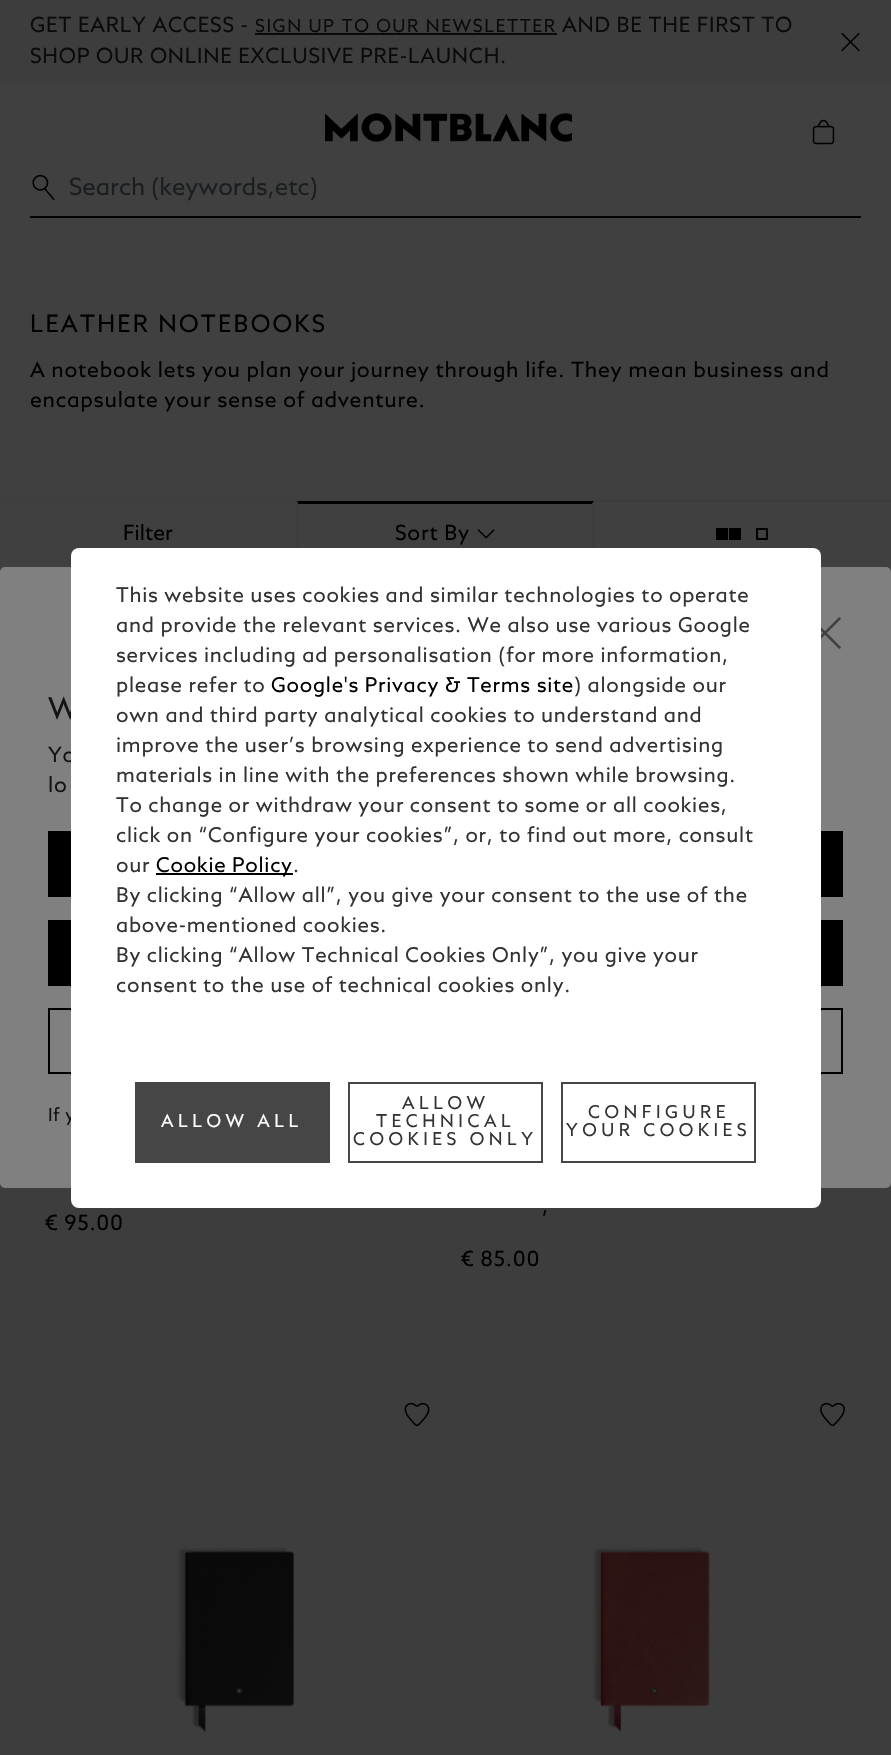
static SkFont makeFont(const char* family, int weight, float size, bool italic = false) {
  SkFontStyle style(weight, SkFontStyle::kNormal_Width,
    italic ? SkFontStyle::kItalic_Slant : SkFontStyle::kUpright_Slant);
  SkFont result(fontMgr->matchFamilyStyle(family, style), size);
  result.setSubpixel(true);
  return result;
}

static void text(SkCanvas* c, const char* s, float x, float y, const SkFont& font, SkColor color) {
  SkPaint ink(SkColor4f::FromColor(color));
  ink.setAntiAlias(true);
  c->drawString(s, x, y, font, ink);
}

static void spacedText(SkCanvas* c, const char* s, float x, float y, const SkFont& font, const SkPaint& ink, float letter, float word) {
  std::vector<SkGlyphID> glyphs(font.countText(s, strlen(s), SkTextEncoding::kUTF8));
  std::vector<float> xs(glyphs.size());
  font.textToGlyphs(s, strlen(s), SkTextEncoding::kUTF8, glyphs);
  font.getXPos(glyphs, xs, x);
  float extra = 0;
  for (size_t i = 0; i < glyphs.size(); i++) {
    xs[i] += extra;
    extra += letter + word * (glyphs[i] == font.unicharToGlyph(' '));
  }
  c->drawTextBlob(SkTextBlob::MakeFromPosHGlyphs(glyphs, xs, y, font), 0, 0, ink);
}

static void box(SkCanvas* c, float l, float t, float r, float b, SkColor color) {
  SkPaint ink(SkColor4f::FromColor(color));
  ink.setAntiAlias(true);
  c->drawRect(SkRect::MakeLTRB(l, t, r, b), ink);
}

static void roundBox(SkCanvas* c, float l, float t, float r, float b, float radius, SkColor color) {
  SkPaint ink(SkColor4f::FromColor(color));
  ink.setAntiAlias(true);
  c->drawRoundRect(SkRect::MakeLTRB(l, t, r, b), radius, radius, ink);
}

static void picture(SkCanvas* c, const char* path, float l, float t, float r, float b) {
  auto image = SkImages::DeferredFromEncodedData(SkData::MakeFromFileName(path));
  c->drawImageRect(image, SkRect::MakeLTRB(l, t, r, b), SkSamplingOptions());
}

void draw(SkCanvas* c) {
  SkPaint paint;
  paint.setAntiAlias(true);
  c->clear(0xff404040);
  box(c, 0, 0, 891, 83, 0xff3d3d3d);
  SkFont face1 = makeFont("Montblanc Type", 400, 21);
  paint.setColor(0xff0b0b0c);
  spacedText(c, "GET EARLY ACCESS -", 30, 32, face1, paint, 0.75f, 0);
  SkFont face2 = makeFont("Montblanc Type", 400, 18);
  spacedText(c, "SIGN UP TO OUR NEWSLETTER", 255, 32, face2, paint, 1.5f, 0);
  box(c, 255, 33, 557, 35, 0xff0b0b0c);
  spacedText(c, "AND BE THE FIRST TO", 562, 32, face1, paint, 0.75f, 0);
  spacedText(c, "SHOP OUR ONLINE EXCLUSIVE PRE-LAUNCH.", 30, 63, face1, paint, 0.75f, 0);
  picture(c, "img_01.png", 841, 32, 860, 52);
  picture(c, "img_02.png", 325, 113, 572, 142);
  picture(c, "img_03.png", 812, 119, 835, 145);
  picture(c, "img_04.png", 32, 174, 55, 201);
  box(c, 30, 216, 861, 218, 0xff000000);
  c->save();
  c->clipRect(SkRect::MakeLTRB(69, 177, 735, 201));
  SkFont face3 = makeFont("Montblanc Type", 400, 24);
  text(c, "Search (keywords,etc)", 69, 195, face3, 0xff1b1e20);
  c->restore();
  paint.setColor(0xff000000);
  spacedText(c, "LEATHER NOTEBOOKS", 30, 332, face3, paint, 2.25f, 0);
  spacedText(c, "A notebook lets you plan your journey through life. They mean business and", 30, 377, face1, paint, 0.75f, 0);
  spacedText(c, "encapsulate your sense of adventure.", 30, 407, face1, paint, 0.75f, 0);
  box(c, 0, 500, 891, 502, 0xff3d3d3d);
  box(c, 0, 501, 296, 502, 0xff404040);
  box(c, 296, 501, 298, 548, 0xff3d3d3d);
  text(c, "Filter", 123, 540, face1, 0xff000000);
  c->drawPath(SkPathBuilder().moveTo(297, 501).lineTo(594, 501).lineTo(592, 504).lineTo(298, 504).close().detach(), paint);
  paint.setColor(0xff3d3d3d);
  c->drawPath(SkPathBuilder().moveTo(594, 501).lineTo(594, 567).lineTo(592, 564).lineTo(592, 504).close().detach(), paint);
  c->drawPath(SkPathBuilder().moveTo(297, 567).lineTo(297, 501).lineTo(298, 504).lineTo(298, 564).close().detach(), paint);
  paint.setColor(0xff000000);
  spacedText(c, "Sort By", 395, 540, face1, paint, 0.75f, 0);
  picture(c, "img_05.png", 477, 529, 495, 539);
  paint.setStyle(SkPaint::kStroke_Style);
  paint.setStrokeWidth(2);
  c->drawRect(SkRect::MakeLTRB(717, 529, 727, 539), paint);
  box(c, 718, 530, 726, 538, 0xff000000);
  c->drawRect(SkRect::MakeLTRB(730, 529, 740, 539), paint);
  box(c, 731, 530, 739, 538, 0xff000000);
  c->drawRect(SkRect::MakeLTRB(757, 529, 767, 539), paint);
  box(c, 0, 567, 891, 572, 0xff3d3d3d);
  box(c, 0, 1183, 891, 1755, 0xff3d3d3d);
  paint.setStyle(SkPaint::kFill_Style);
  spacedText(c, "€ 95.00", 45, 1230, face1, paint, 0.75f, 0);
  spacedText(c, ",", 542, 1213, face1, paint, 0.75f, 0);
  spacedText(c, "€ 85.00", 461, 1266, face1, paint, 0.75f, 0);
  picture(c, "img_06.png", 404, 1402, 430, 1427);
  picture(c, "img_07.png", 176, 1547, 294, 1733);
  picture(c, "img_08.png", 820, 1402, 845, 1427);
  picture(c, "img_09.png", 591, 1547, 710, 1733);
  roundBox(c, 0, 567, 891, 1188, 5, 0xff808080);
  picture(c, "img_10.png", 821, 617, 841, 649);
  SkFont face4 = makeFont("Montblanc Type", 400, 30);
  paint.setColor(0xff141414);
  spacedText(c, "W", 48, 719, face4, paint, 0.75f, 0);
  spacedText(c, "Yo", 48, 762, face1, paint, 0.75f, 0);
  spacedText(c, "lo", 48, 792, face1, paint, 0.75f, 0);
  box(c, 48, 831, 843, 897, 0xff000000);
  box(c, 48, 920, 843, 986, 0xff000000);
  paint.setStyle(SkPaint::kStroke_Style);
  paint.setColor(0xff000000);
  c->drawRect(SkRect::MakeLTRB(49, 1009, 842, 1073), paint);
  paint.setStyle(SkPaint::kFill_Style);
  paint.setColor(0xff141414);
  spacedText(c, "If y", 48, 1121, face2, paint, 0.5f, 0);
  roundBox(c, 71, 548, 821, 1208, 8, 0xffffffff);
  SkFont face5 = makeFont("Montblanc Type", 400, 20.4f);
  paint.setColor(0xff333333);
  spacedText(c, "This website uses cookies and similar technologies to operate", 116, 602, face5, paint, 0.75f, 0);
  spacedText(c, "and provide the relevant services. We also use various Google", 116, 632, face5, paint, 0.75f, 0);
  spacedText(c, "services including ad personalisation (for more information,", 116, 662, face5, paint, 0.75f, 0);
  spacedText(c, "please refer to", 116, 692, face5, paint, 0.75f, 0);
  paint.setColor(0xff000000);
  spacedText(c, "Google's Privacy & Terms site", 271, 692, face5, paint, 0.75f, 0);
  paint.setColor(0xff333333);
  spacedText(c, ") alongside our", 574, 692, face5, paint, 0.75f, 0);
  spacedText(c, "own and third party analytical cookies to understand and", 116, 722, face5, paint, 0.75f, 0);
  spacedText(c, "improve the user’s browsing experience to send advertising", 116, 752, face5, paint, 0.75f, 0);
  spacedText(c, "materials in line with the preferences shown while browsing.", 116, 782, face5, paint, 0.75f, 0);
  spacedText(c, "To change or withdraw your consent to some or all cookies,", 116, 812, face5, paint, 0.75f, 0);
  spacedText(c, "click on “Configure your cookies”, or, to find out more, consult", 116, 842, face5, paint, 0.75f, 0);
  spacedText(c, "our", 116, 872, face5, paint, 0.75f, 0);
  box(c, 156, 873, 293, 875, 0xff000000);
  paint.setColor(0xff000000);
  spacedText(c, "Cookie Policy", 156, 872, face5, paint, 0.75f, 0);
  paint.setColor(0xff333333);
  spacedText(c, ".", 293, 872, face5, paint, 0.75f, 0);
  spacedText(c, "By clicking “Allow all”, you give your consent to the use of the", 116, 902, face5, paint, 0.75f, 0);
  spacedText(c, "above-mentioned cookies.", 116, 932, face5, paint, 0.75f, 0);
  spacedText(c, "By clicking “Allow Technical Cookies Only”, you give your", 116, 962, face5, paint, 0.75f, 0);
  spacedText(c, "consent to the use of technical cookies only.", 116, 992, face5, paint, 0.75f, 0);
  box(c, 135, 1082, 330, 1163, 0xff464646);
  SkFont face6 = makeFont("Montblanc Type", 400, 17.8f);
  paint.setColor(0xffffffff);
  spacedText(c, "ALLOW ALL", 161, 1127, face6, paint, 4.5f, 0);
  paint.setStyle(SkPaint::kStroke_Style);
  paint.setColor(0xff464646);
  c->drawRect(SkRect::MakeLTRB(349, 1083, 542, 1162), paint);
  paint.setStyle(SkPaint::kFill_Style);
  paint.setColor(0xff333333);
  spacedText(c, "ALLOW", 402, 1109, face6, paint, 4.5f, 0);
  spacedText(c, "TECHNICAL", 376, 1127, face6, paint, 4.5f, 0);
  spacedText(c, "COOKIES ONLY", 353, 1145, face6, paint, 4.5f, 0);
  paint.setStyle(SkPaint::kStroke_Style);
  paint.setColor(0xff464646);
  c->drawRect(SkRect::MakeLTRB(562, 1083, 755, 1162), paint);
  paint.setStyle(SkPaint::kFill_Style);
  paint.setColor(0xff333333);
  spacedText(c, "CONFIGURE", 588, 1118, face6, paint, 4.5f, 0);
  spacedText(c, "YOUR COOKIES", 566, 1136, face6, paint, 4.5f, 0);
}
